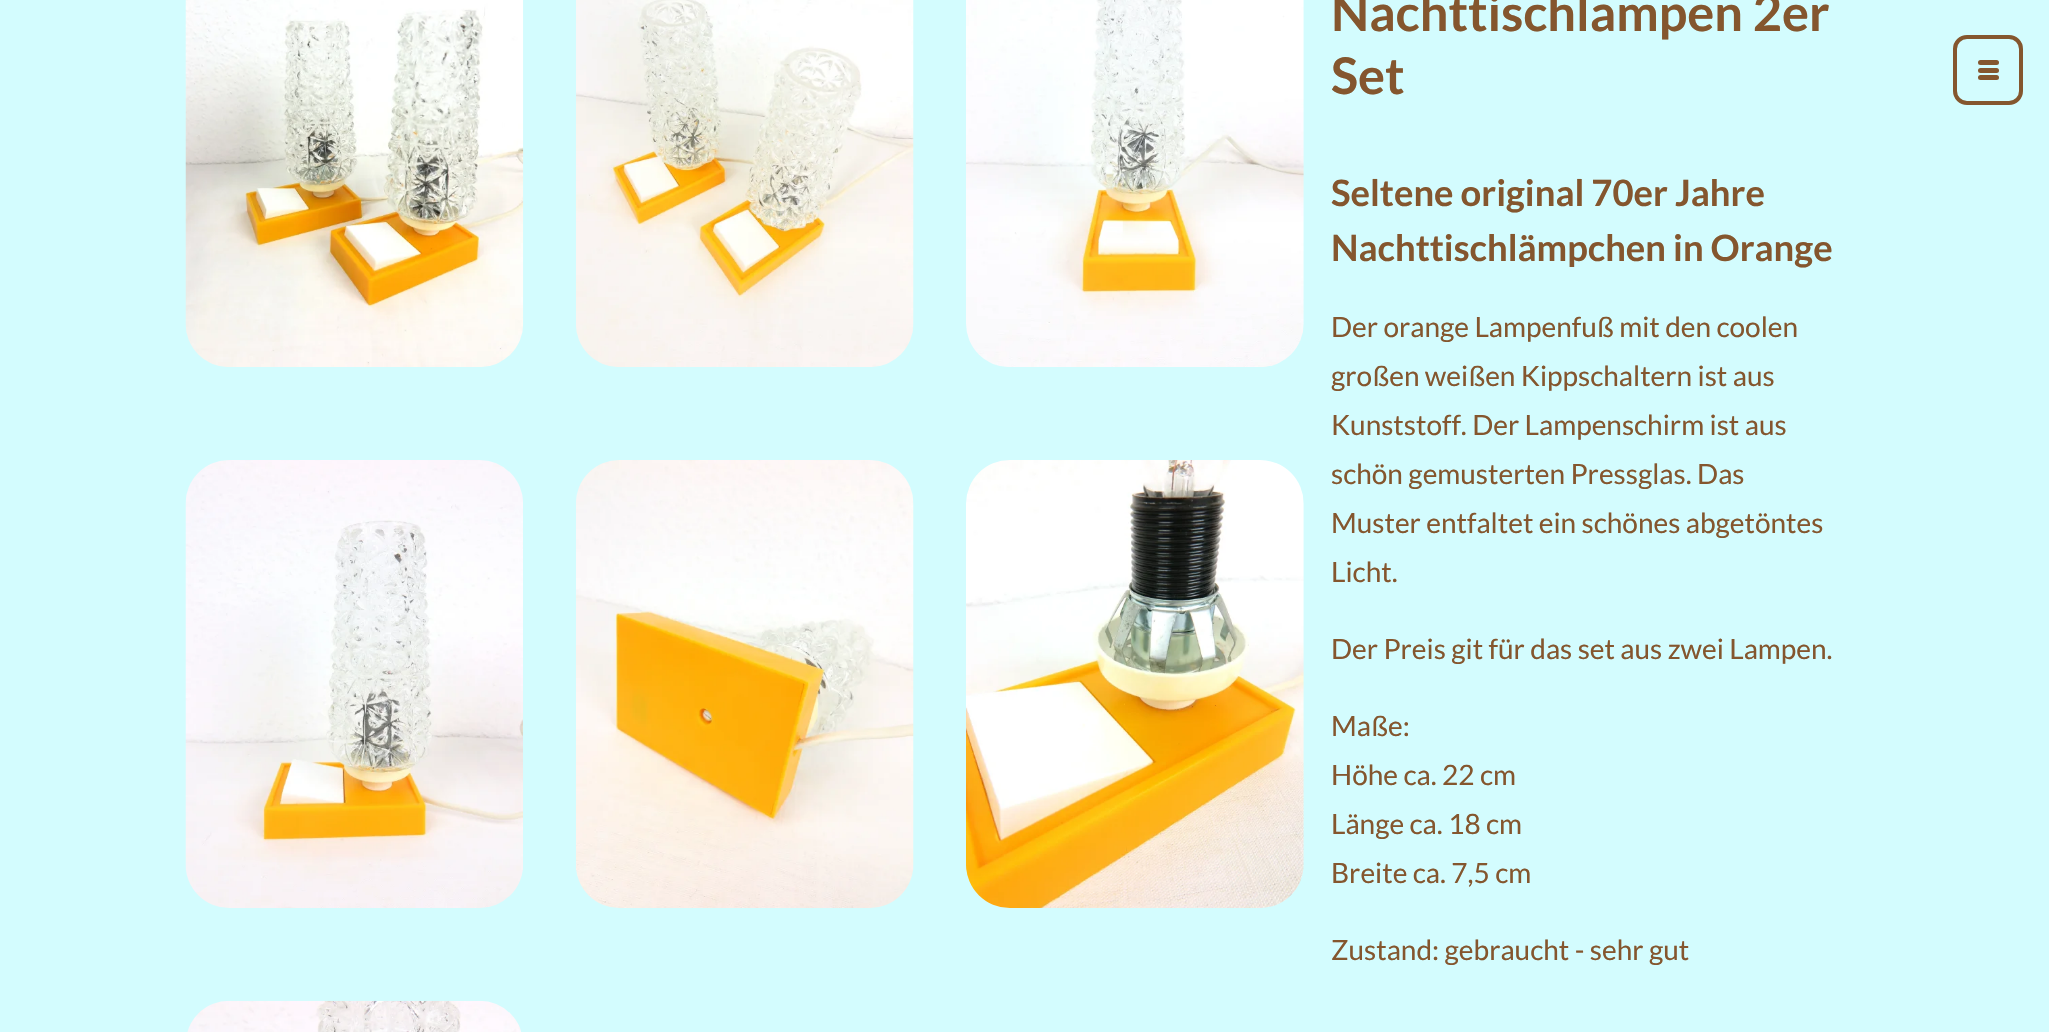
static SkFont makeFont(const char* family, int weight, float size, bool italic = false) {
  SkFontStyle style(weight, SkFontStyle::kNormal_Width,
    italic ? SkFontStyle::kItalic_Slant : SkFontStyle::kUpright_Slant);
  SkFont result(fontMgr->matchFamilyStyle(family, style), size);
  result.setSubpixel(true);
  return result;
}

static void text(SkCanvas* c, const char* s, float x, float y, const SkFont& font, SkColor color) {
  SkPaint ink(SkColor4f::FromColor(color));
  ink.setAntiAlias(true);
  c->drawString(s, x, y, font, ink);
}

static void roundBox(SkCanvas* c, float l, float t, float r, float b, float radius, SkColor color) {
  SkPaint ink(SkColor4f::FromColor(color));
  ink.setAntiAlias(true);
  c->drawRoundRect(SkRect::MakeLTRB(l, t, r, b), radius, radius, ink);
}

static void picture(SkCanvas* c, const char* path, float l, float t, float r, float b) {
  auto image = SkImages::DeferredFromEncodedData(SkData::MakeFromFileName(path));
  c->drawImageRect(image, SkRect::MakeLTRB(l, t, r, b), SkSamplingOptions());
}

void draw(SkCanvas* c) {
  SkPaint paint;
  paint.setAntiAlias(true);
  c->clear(0xffd3fcfe);
  picture(c, "img_01.png", 185, 0, 524, 367);
  picture(c, "img_02.png", 576, 0, 914, 367);
  picture(c, "img_03.png", 966, 0, 1304, 367);
  picture(c, "img_04.png", 185, 460, 523, 908);
  picture(c, "img_05.png", 576, 460, 914, 908);
  picture(c, "img_06.png", 966, 460, 1304, 908);
  picture(c, "img_07.png", 187, 1000, 521, 1032);
  SkFont face1 = makeFont("Lato", 700, 50.5f);
  text(c, "Nachttischlampen 2er", 1331, 31, face1, 0xff84562e);
  text(c, "Set", 1331, 94, face1, 0xff84562e);
  SkFont face2 = makeFont("Lato", 700, 36.4f);
  text(c, "Seltene original 70er Jahre", 1331, 206, face2, 0xff84562e);
  text(c, "Nachttischlämpchen in Orange", 1331, 261, face2, 0xff84562e);
  SkFont face3 = makeFont("Lato", 400, 28);
  text(c, "Der orange Lampenfuß mit den coolen", 1331, 337, face3, 0xff84562e);
  text(c, "großen weißen Kippschaltern ist aus", 1331, 386, face3, 0xff84562e);
  text(c, "Kunststoff. Der Lampenschirm ist aus", 1331, 435, face3, 0xff84562e);
  text(c, "schön gemusterten Pressglas. Das", 1331, 484, face3, 0xff84562e);
  text(c, "Muster entfaltet ein schönes abgetöntes", 1331, 533, face3, 0xff84562e);
  text(c, "Licht.", 1331, 582, face3, 0xff84562e);
  text(c, "Der Preis git für das set aus zwei Lampen.", 1331, 659, face3, 0xff84562e);
  text(c, "Maße:", 1331, 736, face3, 0xff84562e);
  text(c, "Höhe ca. 22 cm", 1331, 785, face3, 0xff84562e);
  text(c, "Länge ca. 18 cm", 1331, 834, face3, 0xff84562e);
  text(c, "Breite ca. 7,5 cm", 1331, 883, face3, 0xff84562e);
  text(c, "Zustand: gebraucht - sehr gut", 1331, 960, face3, 0xff84562e);
  paint.setStyle(SkPaint::kStroke_Style);
  paint.setStrokeWidth(4);
  paint.setColor(0xff84562e);
  c->drawRoundRect(SkRect::MakeLTRB(1955, 37, 2021, 103), 12, 12, paint);
  roundBox(c, 1978, 60, 1999, 65, 2.5f, 0xff84562e);
  roundBox(c, 1978, 68, 1999, 73, 2.5f, 0xff84562e);
  roundBox(c, 1978, 75, 1999, 80, 2.5f, 0xff84562e);
}
